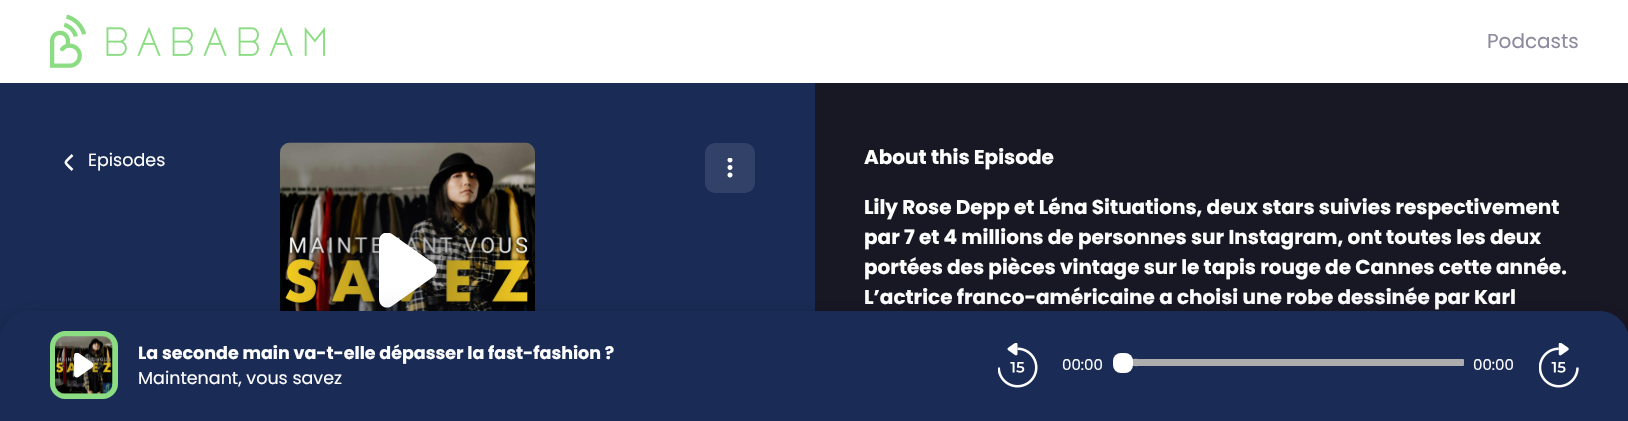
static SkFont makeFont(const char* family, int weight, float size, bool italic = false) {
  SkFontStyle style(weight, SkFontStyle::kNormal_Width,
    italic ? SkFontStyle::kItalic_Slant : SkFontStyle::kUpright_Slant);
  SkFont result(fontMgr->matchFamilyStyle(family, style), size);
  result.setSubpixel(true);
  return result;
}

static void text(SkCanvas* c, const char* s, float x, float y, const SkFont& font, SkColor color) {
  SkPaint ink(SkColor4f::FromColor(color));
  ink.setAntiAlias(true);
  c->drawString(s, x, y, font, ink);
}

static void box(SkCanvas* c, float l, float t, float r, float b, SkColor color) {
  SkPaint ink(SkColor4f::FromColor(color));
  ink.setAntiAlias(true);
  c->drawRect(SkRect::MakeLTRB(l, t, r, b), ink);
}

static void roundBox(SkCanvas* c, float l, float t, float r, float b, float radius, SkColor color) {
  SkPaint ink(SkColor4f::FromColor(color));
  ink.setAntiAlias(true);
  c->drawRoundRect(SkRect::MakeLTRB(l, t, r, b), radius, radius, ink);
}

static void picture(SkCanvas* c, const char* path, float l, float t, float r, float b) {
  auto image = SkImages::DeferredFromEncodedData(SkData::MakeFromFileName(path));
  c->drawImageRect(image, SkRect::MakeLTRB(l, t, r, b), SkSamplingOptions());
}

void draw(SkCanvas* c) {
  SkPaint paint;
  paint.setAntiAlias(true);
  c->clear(0xffffffff);
  picture(c, "img_01.png", 50, 14, 325, 68);
  SkFont face1 = makeFont("Poppins", 400, 20);
  text(c, "Podcasts", 1487, 48, face1, 0xff8d8a9e);
  box(c, 0, 83, 815, 341, 0xff1a2c56);
  paint.setStyle(SkPaint::kStroke_Style);
  paint.setStrokeWidth(2.5f);
  paint.setColor(0xffffffff);
  c->drawPath(SkPathBuilder().moveTo(72.5f, 155).cubicTo(63.5f, 164, 63.5f, 161, 72.5f, 170).detach(), paint);
  SkFont face2 = makeFont("Poppins", 400, 17.5f);
  text(c, "Episodes", 88, 166, face2, 0xffffffff);
  roundBox(c, 705, 143, 755, 193, 10, 0xff314167);
  picture(c, "img_02.png", 727, 158, 733, 178);
  picture(c, "img_03.png", 280, 142, 535, 311);
  paint.setStyle(SkPaint::kFill_Style);
  {
    const SkColor colors[] = {0x66181724, 0x00181724};
    const float stops[] = {0, 1};
    paint.setShader(SkGradientShader::MakeRadial({408, 270}, 128, colors, stops, 2, SkTileMode::kClamp));
    paint.setAlpha(255);
  }
  c->drawRect(SkRect::MakeLTRB(287, 149, 529, 311), paint);
  c->save();
  c->clipRect(SkRect::MakeLTRB(370, 233, 445, 308));
  paint.setShader(nullptr);
  paint.setColor(0xffffffff);
  c->drawPath(SkPathBuilder().moveTo(379, 299).lineTo(379, 241).cubicTo(379, 234, 386, 230, 392, 234).lineTo(433, 263).cubicTo(438, 266, 438, 274, 433, 277).lineTo(392, 306).cubicTo(386, 310, 379, 306, 379, 299).close().detach(), paint);
  c->restore();
  box(c, 815, 83, 1628, 334, 0xff181724);
  SkFont face3 = makeFont("Poppins", 700, 20);
  text(c, "About this Episode", 864, 164, face3, 0xffffffff);
  text(c, "Lily Rose Depp et Léna Situations, deux stars suivies respectivement", 864, 214, face3, 0xffffffff);
  text(c, "par 7 et 4 millions de personnes sur Instagram, ont toutes les deux", 864, 244, face3, 0xffffffff);
  text(c, "portées des pièces vintage sur le tapis rouge de Cannes cette année.", 864, 274, face3, 0xffffffff);
  text(c, "L’actrice franco-américaine a choisi une robe dessinée par Karl", 864, 304, face3, 0xffffffff);
  paint.setColor(0xff1a2c56);
  c->drawPath(SkPathBuilder().moveTo(30, 311).lineTo(1599, 311).cubicTo(1615.5f, 311, 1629, 324.5f, 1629, 341).lineTo(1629, 421).lineTo(0, 421).lineTo(0, 341).cubicTo(0, 324.5f, 13.5f, 311, 30, 311).close().detach(), paint);
  c->save();
  c->clipPath(SkPathBuilder(SkPathFillType::kEvenOdd).moveTo(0, 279).lineTo(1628, 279).lineTo(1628, 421).lineTo(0, 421).close().moveTo(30, 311).lineTo(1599, 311).cubicTo(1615.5f, 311, 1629, 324.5f, 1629, 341).lineTo(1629, 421).lineTo(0, 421).lineTo(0, 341).cubicTo(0, 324.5f, 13.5f, 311, 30, 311).close().detach(), true);
  paint.setColor(0x3d000000);
  paint.setMaskFilter(SkMaskFilter::MakeBlur(kNormal_SkBlurStyle, 12.5f));
  c->drawRoundRect(SkRect::MakeLTRB(0, 318, 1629, 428), 30, 30, paint);
  paint.setMaskFilter(nullptr);
  c->restore();
  paint.setColor(0xff8bdc82);
  c->drawPath(SkPathBuilder().moveTo(65, 331).lineTo(103, 331).cubicTo(111, 331, 118, 338, 118, 346).lineTo(118, 384).cubicTo(118, 392, 111, 399, 103, 399).lineTo(65, 399).cubicTo(57, 399, 50, 392, 50, 384).lineTo(50, 346).cubicTo(50, 338, 57, 331, 65, 331).close().detach(), paint);
  picture(c, "img_04.png", 55, 336, 113, 394);
  {
    const SkColor colors[] = {0x66181724, 0x00181724};
    const float stops[] = {0, 1};
    paint.setShader(SkGradientShader::MakeRadial({84, 365}, 29, colors, stops, 2, SkTileMode::kClamp));
    paint.setAlpha(255);
  }
  c->drawRect(SkRect::MakeLTRB(57, 338, 111, 392), paint);
  picture(c, "img_05.png", 74, 353, 94, 378);
  SkFont face4 = makeFont("Poppins", 700, 17.5f);
  text(c, "La seconde main va-t-elle dépasser la fast-fashion ?", 138, 359, face4, 0xffffffff);
  text(c, "Maintenant, vous savez", 138, 384, face2, 0xffffffff);
  picture(c, "img_06.png", 998, 343, 1038, 388);
  SkFont face5 = makeFont("Poppins", 400, 15);
  text(c, "00:00", 1062, 370, face5, 0xffffffff);
  roundBox(c, 1456, 359, 1464, 366, 1, 0xffadadad);
  roundBox(c, 1455, 359, 1463, 366, 1, 0xffadadad);
  roundBox(c, 1454, 359, 1461, 366, 1, 0xffadadad);
  roundBox(c, 1453, 359, 1460, 366, 1, 0xffadadad);
  roundBox(c, 1451, 359, 1459, 366, 1, 0xffadadad);
  roundBox(c, 1450, 359, 1458, 366, 1, 0xffadadad);
  roundBox(c, 1449, 359, 1456, 366, 1, 0xffadadad);
  roundBox(c, 1448, 359, 1455, 366, 1, 0xffadadad);
  roundBox(c, 1446, 359, 1454, 366, 1, 0xffadadad);
  roundBox(c, 1445, 359, 1453, 366, 1, 0xffadadad);
  roundBox(c, 1444, 359, 1451, 366, 1, 0xffadadad);
  roundBox(c, 1443, 359, 1450, 366, 1, 0xffadadad);
  roundBox(c, 1441, 359, 1449, 366, 1, 0xffadadad);
  roundBox(c, 1440, 359, 1448, 366, 1, 0xffadadad);
  roundBox(c, 1439, 359, 1446, 366, 1, 0xffadadad);
  roundBox(c, 1438, 359, 1445, 366, 1, 0xffadadad);
  roundBox(c, 1436, 359, 1444, 366, 1, 0xffadadad);
  roundBox(c, 1435, 359, 1443, 366, 1, 0xffadadad);
  roundBox(c, 1434, 359, 1441, 366, 1, 0xffadadad);
  roundBox(c, 1433, 359, 1440, 366, 1, 0xffadadad);
  roundBox(c, 1431, 359, 1439, 366, 1, 0xffadadad);
  roundBox(c, 1430, 359, 1438, 366, 1, 0xffadadad);
  roundBox(c, 1429, 359, 1436, 366, 1, 0xffadadad);
  roundBox(c, 1428, 359, 1435, 366, 1, 0xffadadad);
  roundBox(c, 1426, 359, 1434, 366, 1, 0xffadadad);
  roundBox(c, 1425, 359, 1433, 366, 1, 0xffadadad);
  roundBox(c, 1424, 359, 1431, 366, 1, 0xffadadad);
  roundBox(c, 1423, 359, 1430, 366, 1, 0xffadadad);
  roundBox(c, 1421, 359, 1429, 366, 1, 0xffadadad);
  roundBox(c, 1420, 359, 1428, 366, 1, 0xffadadad);
  roundBox(c, 1419, 359, 1426, 366, 1, 0xffadadad);
  roundBox(c, 1418, 359, 1425, 366, 1, 0xffadadad);
  roundBox(c, 1416, 359, 1424, 366, 1, 0xffadadad);
  roundBox(c, 1415, 359, 1423, 366, 1, 0xffadadad);
  roundBox(c, 1414, 359, 1421, 366, 1, 0xffadadad);
  roundBox(c, 1413, 359, 1420, 366, 1, 0xffadadad);
  roundBox(c, 1411, 359, 1419, 366, 1, 0xffadadad);
  roundBox(c, 1410, 359, 1418, 366, 1, 0xffadadad);
  roundBox(c, 1409, 359, 1416, 366, 1, 0xffadadad);
  roundBox(c, 1408, 359, 1415, 366, 1, 0xffadadad);
  roundBox(c, 1406, 359, 1414, 366, 1, 0xffadadad);
  roundBox(c, 1405, 359, 1413, 366, 1, 0xffadadad);
  roundBox(c, 1404, 359, 1411, 366, 1, 0xffadadad);
  roundBox(c, 1403, 359, 1410, 366, 1, 0xffadadad);
  roundBox(c, 1401, 359, 1409, 366, 1, 0xffadadad);
  roundBox(c, 1400, 359, 1408, 366, 1, 0xffadadad);
  roundBox(c, 1399, 359, 1406, 366, 1, 0xffadadad);
  roundBox(c, 1398, 359, 1405, 366, 1, 0xffadadad);
  roundBox(c, 1396, 359, 1404, 366, 1, 0xffadadad);
  roundBox(c, 1395, 359, 1403, 366, 1, 0xffadadad);
  roundBox(c, 1394, 359, 1401, 366, 1, 0xffadadad);
  roundBox(c, 1393, 359, 1400, 366, 1, 0xffadadad);
  roundBox(c, 1391, 359, 1399, 366, 1, 0xffadadad);
  roundBox(c, 1390, 359, 1398, 366, 1, 0xffadadad);
  roundBox(c, 1389, 359, 1396, 366, 1, 0xffadadad);
  roundBox(c, 1388, 359, 1395, 366, 1, 0xffadadad);
  roundBox(c, 1386, 359, 1394, 366, 1, 0xffadadad);
  roundBox(c, 1385, 359, 1393, 366, 1, 0xffadadad);
  roundBox(c, 1384, 359, 1391, 366, 1, 0xffadadad);
  roundBox(c, 1383, 359, 1390, 366, 1, 0xffadadad);
  roundBox(c, 1381, 359, 1389, 366, 1, 0xffadadad);
  roundBox(c, 1380, 359, 1388, 366, 1, 0xffadadad);
  roundBox(c, 1379, 359, 1386, 366, 1, 0xffadadad);
  roundBox(c, 1378, 359, 1385, 366, 1, 0xffadadad);
  roundBox(c, 1376, 359, 1384, 366, 1, 0xffadadad);
  roundBox(c, 1375, 359, 1383, 366, 1, 0xffadadad);
  roundBox(c, 1374, 359, 1381, 366, 1, 0xffadadad);
  roundBox(c, 1373, 359, 1380, 366, 1, 0xffadadad);
  roundBox(c, 1371, 359, 1379, 366, 1, 0xffadadad);
  roundBox(c, 1370, 359, 1378, 366, 1, 0xffadadad);
  roundBox(c, 1369, 359, 1376, 366, 1, 0xffadadad);
  roundBox(c, 1368, 359, 1375, 366, 1, 0xffadadad);
  roundBox(c, 1366, 359, 1374, 366, 1, 0xffadadad);
  roundBox(c, 1365, 359, 1373, 366, 1, 0xffadadad);
  roundBox(c, 1364, 359, 1371, 366, 1, 0xffadadad);
  roundBox(c, 1363, 359, 1370, 366, 1, 0xffadadad);
  roundBox(c, 1361, 359, 1369, 366, 1, 0xffadadad);
  roundBox(c, 1360, 359, 1368, 366, 1, 0xffadadad);
  roundBox(c, 1359, 359, 1366, 366, 1, 0xffadadad);
  roundBox(c, 1358, 359, 1365, 366, 1, 0xffadadad);
  roundBox(c, 1356, 359, 1364, 366, 1, 0xffadadad);
  roundBox(c, 1355, 359, 1363, 366, 1, 0xffadadad);
  roundBox(c, 1354, 359, 1361, 366, 1, 0xffadadad);
  roundBox(c, 1353, 359, 1360, 366, 1, 0xffadadad);
  roundBox(c, 1351, 359, 1359, 366, 1, 0xffadadad);
  roundBox(c, 1350, 359, 1358, 366, 1, 0xffadadad);
  roundBox(c, 1349, 359, 1356, 366, 1, 0xffadadad);
  roundBox(c, 1348, 359, 1355, 366, 1, 0xffadadad);
  roundBox(c, 1346, 359, 1354, 366, 1, 0xffadadad);
  roundBox(c, 1345, 359, 1353, 366, 1, 0xffadadad);
  roundBox(c, 1344, 359, 1351, 366, 1, 0xffadadad);
  roundBox(c, 1343, 359, 1350, 366, 1, 0xffadadad);
  roundBox(c, 1341, 359, 1349, 366, 1, 0xffadadad);
  roundBox(c, 1340, 359, 1348, 366, 1, 0xffadadad);
  roundBox(c, 1339, 359, 1346, 366, 1, 0xffadadad);
  roundBox(c, 1338, 359, 1345, 366, 1, 0xffadadad);
  roundBox(c, 1336, 359, 1344, 366, 1, 0xffadadad);
  roundBox(c, 1335, 359, 1343, 366, 1, 0xffadadad);
  roundBox(c, 1334, 359, 1341, 366, 1, 0xffadadad);
  roundBox(c, 1333, 359, 1340, 366, 1, 0xffadadad);
  roundBox(c, 1331, 359, 1339, 366, 1, 0xffadadad);
  roundBox(c, 1330, 359, 1338, 366, 1, 0xffadadad);
  roundBox(c, 1329, 359, 1336, 366, 1, 0xffadadad);
  roundBox(c, 1328, 359, 1335, 366, 1, 0xffadadad);
  roundBox(c, 1326, 359, 1334, 366, 1, 0xffadadad);
  roundBox(c, 1325, 359, 1333, 366, 1, 0xffadadad);
  roundBox(c, 1324, 359, 1331, 366, 1, 0xffadadad);
  roundBox(c, 1323, 359, 1330, 366, 1, 0xffadadad);
  roundBox(c, 1321, 359, 1329, 366, 1, 0xffadadad);
  roundBox(c, 1320, 359, 1328, 366, 1, 0xffadadad);
  roundBox(c, 1319, 359, 1326, 366, 1, 0xffadadad);
  roundBox(c, 1318, 359, 1325, 366, 1, 0xffadadad);
  roundBox(c, 1316, 359, 1324, 366, 1, 0xffadadad);
  roundBox(c, 1315, 359, 1323, 366, 1, 0xffadadad);
  roundBox(c, 1314, 359, 1321, 366, 1, 0xffadadad);
  roundBox(c, 1313, 359, 1320, 366, 1, 0xffadadad);
  roundBox(c, 1311, 359, 1319, 366, 1, 0xffadadad);
  roundBox(c, 1310, 359, 1318, 366, 1, 0xffadadad);
  roundBox(c, 1309, 359, 1316, 366, 1, 0xffadadad);
  roundBox(c, 1308, 359, 1315, 366, 1, 0xffadadad);
  roundBox(c, 1306, 359, 1314, 366, 1, 0xffadadad);
  roundBox(c, 1305, 359, 1313, 366, 1, 0xffadadad);
  roundBox(c, 1304, 359, 1311, 366, 1, 0xffadadad);
  roundBox(c, 1303, 359, 1310, 366, 1, 0xffadadad);
  roundBox(c, 1301, 359, 1309, 366, 1, 0xffadadad);
  roundBox(c, 1300, 359, 1308, 366, 1, 0xffadadad);
  roundBox(c, 1299, 359, 1306, 366, 1, 0xffadadad);
  roundBox(c, 1298, 359, 1305, 366, 1, 0xffadadad);
  roundBox(c, 1296, 359, 1304, 366, 1, 0xffadadad);
  roundBox(c, 1295, 359, 1303, 366, 1, 0xffadadad);
  roundBox(c, 1294, 359, 1301, 366, 1, 0xffadadad);
  roundBox(c, 1293, 359, 1300, 366, 1, 0xffadadad);
  roundBox(c, 1291, 359, 1299, 366, 1, 0xffadadad);
  roundBox(c, 1290, 359, 1298, 366, 1, 0xffadadad);
  roundBox(c, 1289, 359, 1296, 366, 1, 0xffadadad);
  roundBox(c, 1288, 359, 1295, 366, 1, 0xffadadad);
  roundBox(c, 1286, 359, 1294, 366, 1, 0xffadadad);
  roundBox(c, 1285, 359, 1293, 366, 1, 0xffadadad);
  roundBox(c, 1284, 359, 1291, 366, 1, 0xffadadad);
  roundBox(c, 1283, 359, 1290, 366, 1, 0xffadadad);
  roundBox(c, 1281, 359, 1289, 366, 1, 0xffadadad);
  roundBox(c, 1280, 359, 1288, 366, 1, 0xffadadad);
  roundBox(c, 1279, 359, 1286, 366, 1, 0xffadadad);
  roundBox(c, 1278, 359, 1285, 366, 1, 0xffadadad);
  roundBox(c, 1276, 359, 1284, 366, 1, 0xffadadad);
  roundBox(c, 1275, 359, 1283, 366, 1, 0xffadadad);
  roundBox(c, 1274, 359, 1281, 366, 1, 0xffadadad);
  roundBox(c, 1273, 359, 1280, 366, 1, 0xffadadad);
  roundBox(c, 1271, 359, 1279, 366, 1, 0xffadadad);
  roundBox(c, 1270, 359, 1278, 366, 1, 0xffadadad);
  roundBox(c, 1269, 359, 1276, 366, 1, 0xffadadad);
  roundBox(c, 1268, 359, 1275, 366, 1, 0xffadadad);
  roundBox(c, 1266, 359, 1274, 366, 1, 0xffadadad);
  roundBox(c, 1265, 359, 1273, 366, 1, 0xffadadad);
  roundBox(c, 1264, 359, 1271, 366, 1, 0xffadadad);
  roundBox(c, 1263, 359, 1270, 366, 1, 0xffadadad);
  roundBox(c, 1261, 359, 1269, 366, 1, 0xffadadad);
  roundBox(c, 1260, 359, 1268, 366, 1, 0xffadadad);
  roundBox(c, 1259, 359, 1266, 366, 1, 0xffadadad);
  roundBox(c, 1258, 359, 1265, 366, 1, 0xffadadad);
  roundBox(c, 1256, 359, 1264, 366, 1, 0xffadadad);
  roundBox(c, 1255, 359, 1263, 366, 1, 0xffadadad);
  roundBox(c, 1254, 359, 1261, 366, 1, 0xffadadad);
  roundBox(c, 1253, 359, 1260, 366, 1, 0xffadadad);
  roundBox(c, 1251, 359, 1259, 366, 1, 0xffadadad);
  roundBox(c, 1250, 359, 1258, 366, 1, 0xffadadad);
  roundBox(c, 1249, 359, 1256, 366, 1, 0xffadadad);
  roundBox(c, 1248, 359, 1255, 366, 1, 0xffadadad);
  roundBox(c, 1246, 359, 1254, 366, 1, 0xffadadad);
  roundBox(c, 1245, 359, 1253, 366, 1, 0xffadadad);
  roundBox(c, 1244, 359, 1251, 366, 1, 0xffadadad);
  roundBox(c, 1243, 359, 1250, 366, 1, 0xffadadad);
  roundBox(c, 1241, 359, 1249, 366, 1, 0xffadadad);
  roundBox(c, 1240, 359, 1248, 366, 1, 0xffadadad);
  roundBox(c, 1239, 359, 1246, 366, 1, 0xffadadad);
  roundBox(c, 1238, 359, 1245, 366, 1, 0xffadadad);
  roundBox(c, 1236, 359, 1244, 366, 1, 0xffadadad);
  roundBox(c, 1235, 359, 1243, 366, 1, 0xffadadad);
  roundBox(c, 1234, 359, 1241, 366, 1, 0xffadadad);
  roundBox(c, 1233, 359, 1240, 366, 1, 0xffadadad);
  roundBox(c, 1231, 359, 1239, 366, 1, 0xffadadad);
  roundBox(c, 1230, 359, 1238, 366, 1, 0xffadadad);
  roundBox(c, 1229, 359, 1236, 366, 1, 0xffadadad);
  roundBox(c, 1228, 359, 1235, 366, 1, 0xffadadad);
  roundBox(c, 1226, 359, 1234, 366, 1, 0xffadadad);
  roundBox(c, 1225, 359, 1233, 366, 1, 0xffadadad);
  roundBox(c, 1224, 359, 1231, 366, 1, 0xffadadad);
  roundBox(c, 1223, 359, 1230, 366, 1, 0xffadadad);
  roundBox(c, 1221, 359, 1229, 366, 1, 0xffadadad);
  roundBox(c, 1220, 359, 1228, 366, 1, 0xffadadad);
  roundBox(c, 1219, 359, 1226, 366, 1, 0xffadadad);
  roundBox(c, 1218, 359, 1225, 366, 1, 0xffadadad);
  roundBox(c, 1216, 359, 1224, 366, 1, 0xffadadad);
  roundBox(c, 1215, 359, 1223, 366, 1, 0xffadadad);
  roundBox(c, 1214, 359, 1221, 366, 1, 0xffadadad);
  roundBox(c, 1213, 359, 1220, 366, 1, 0xffadadad);
  roundBox(c, 1211, 359, 1219, 366, 1, 0xffadadad);
  roundBox(c, 1210, 359, 1218, 366, 1, 0xffadadad);
  roundBox(c, 1209, 359, 1216, 366, 1, 0xffadadad);
  roundBox(c, 1208, 359, 1215, 366, 1, 0xffadadad);
  roundBox(c, 1206, 359, 1214, 366, 1, 0xffadadad);
  roundBox(c, 1205, 359, 1213, 366, 1, 0xffadadad);
  roundBox(c, 1204, 359, 1211, 366, 1, 0xffadadad);
  roundBox(c, 1203, 359, 1210, 366, 1, 0xffadadad);
  roundBox(c, 1201, 359, 1209, 366, 1, 0xffadadad);
  roundBox(c, 1200, 359, 1208, 366, 1, 0xffadadad);
  roundBox(c, 1199, 359, 1206, 366, 1, 0xffadadad);
  roundBox(c, 1198, 359, 1205, 366, 1, 0xffadadad);
  roundBox(c, 1196, 359, 1204, 366, 1, 0xffadadad);
  roundBox(c, 1195, 359, 1203, 366, 1, 0xffadadad);
  roundBox(c, 1194, 359, 1201, 366, 1, 0xffadadad);
  roundBox(c, 1193, 359, 1200, 366, 1, 0xffadadad);
  roundBox(c, 1191, 359, 1199, 366, 1, 0xffadadad);
  roundBox(c, 1190, 359, 1198, 366, 1, 0xffadadad);
  roundBox(c, 1189, 359, 1196, 366, 1, 0xffadadad);
  roundBox(c, 1188, 359, 1195, 366, 1, 0xffadadad);
  roundBox(c, 1186, 359, 1194, 366, 1, 0xffadadad);
  roundBox(c, 1185, 359, 1193, 366, 1, 0xffadadad);
  roundBox(c, 1184, 359, 1191, 366, 1, 0xffadadad);
  roundBox(c, 1183, 359, 1190, 366, 1, 0xffadadad);
  roundBox(c, 1181, 359, 1189, 366, 1, 0xffadadad);
  roundBox(c, 1180, 359, 1188, 366, 1, 0xffadadad);
  roundBox(c, 1179, 359, 1186, 366, 1, 0xffadadad);
  roundBox(c, 1178, 359, 1185, 366, 1, 0xffadadad);
  roundBox(c, 1176, 359, 1184, 366, 1, 0xffadadad);
  roundBox(c, 1175, 359, 1183, 366, 1, 0xffadadad);
  roundBox(c, 1174, 359, 1181, 366, 1, 0xffadadad);
  roundBox(c, 1173, 359, 1180, 366, 1, 0xffadadad);
  roundBox(c, 1171, 359, 1179, 366, 1, 0xffadadad);
  roundBox(c, 1170, 359, 1178, 366, 1, 0xffadadad);
  roundBox(c, 1169, 359, 1176, 366, 1, 0xffadadad);
  roundBox(c, 1168, 359, 1175, 366, 1, 0xffadadad);
  roundBox(c, 1166, 359, 1174, 366, 1, 0xffadadad);
  roundBox(c, 1165, 359, 1173, 366, 1, 0xffadadad);
  roundBox(c, 1164, 359, 1171, 366, 1, 0xffadadad);
  roundBox(c, 1163, 359, 1170, 366, 1, 0xffadadad);
  roundBox(c, 1161, 359, 1169, 366, 1, 0xffadadad);
  roundBox(c, 1160, 359, 1168, 366, 1, 0xffadadad);
  roundBox(c, 1159, 359, 1166, 366, 1, 0xffadadad);
  roundBox(c, 1158, 359, 1165, 366, 1, 0xffadadad);
  roundBox(c, 1156, 359, 1164, 366, 1, 0xffadadad);
  roundBox(c, 1155, 359, 1163, 366, 1, 0xffadadad);
  roundBox(c, 1154, 359, 1161, 366, 1, 0xffadadad);
  roundBox(c, 1153, 359, 1160, 366, 1, 0xffadadad);
  roundBox(c, 1151, 359, 1159, 366, 1, 0xffadadad);
  roundBox(c, 1150, 359, 1158, 366, 1, 0xffadadad);
  roundBox(c, 1149, 359, 1156, 366, 1, 0xffadadad);
  roundBox(c, 1148, 359, 1155, 366, 1, 0xffadadad);
  roundBox(c, 1146, 359, 1154, 366, 1, 0xffadadad);
  roundBox(c, 1145, 359, 1153, 366, 1, 0xffadadad);
  roundBox(c, 1144, 359, 1151, 366, 1, 0xffadadad);
  roundBox(c, 1143, 359, 1150, 366, 1, 0xffadadad);
  roundBox(c, 1141, 359, 1149, 366, 1, 0xffadadad);
  roundBox(c, 1140, 359, 1148, 366, 1, 0xffadadad);
  roundBox(c, 1139, 359, 1146, 366, 1, 0xffadadad);
  roundBox(c, 1138, 359, 1145, 366, 1, 0xffadadad);
  roundBox(c, 1136, 359, 1144, 366, 1, 0xffadadad);
  roundBox(c, 1135, 359, 1143, 366, 1, 0xffadadad);
  roundBox(c, 1134, 359, 1141, 366, 1, 0xffadadad);
  roundBox(c, 1133, 359, 1140, 366, 1, 0xffadadad);
  paint.setShader(nullptr);
  paint.setColor(0xffadadad);
  c->drawPath(SkPathBuilder().moveTo(1132.5f, 366).lineTo(1137, 366).cubicTo(1139.5f, 366, 1139, 365, 1139, 362.5f).cubicTo(1139, 360, 1139.5f, 359, 1137, 359).lineTo(1132.5f, 359).close().detach(), paint);
  c->drawPath(SkPathBuilder().moveTo(1132.5f, 366).cubicTo(1137.5f, 366, 1138, 367.5f, 1138, 362.5f).cubicTo(1138, 357.5f, 1137.5f, 359, 1132.5f, 359).close().detach(), paint);
  c->drawPath(SkPathBuilder().moveTo(1132.5f, 366).cubicTo(1136.5f, 366, 1136, 366.5f, 1136, 362.5f).cubicTo(1136, 358.5f, 1136.5f, 359, 1132.5f, 359).close().detach(), paint);
  c->drawPath(SkPathBuilder().moveTo(1132.5f, 366).cubicTo(1135.5f, 366, 1135, 365.5f, 1135, 362.5f).cubicTo(1135, 359.5f, 1135.5f, 359, 1132.5f, 359).close().detach(), paint);
  c->drawPath(SkPathBuilder().moveTo(1132.5f, 366).cubicTo(1134.5f, 366, 1134, 364, 1134, 362.5f).cubicTo(1134, 361, 1134.5f, 359, 1132.5f, 359).close().detach(), paint);
  roundBox(c, 1113, 353, 1133, 373, 8, 0xffffffff);
  text(c, "00:00", 1473, 370, face5, 0xffffffff);
  picture(c, "img_07.png", 1539, 343, 1579, 388);
}
